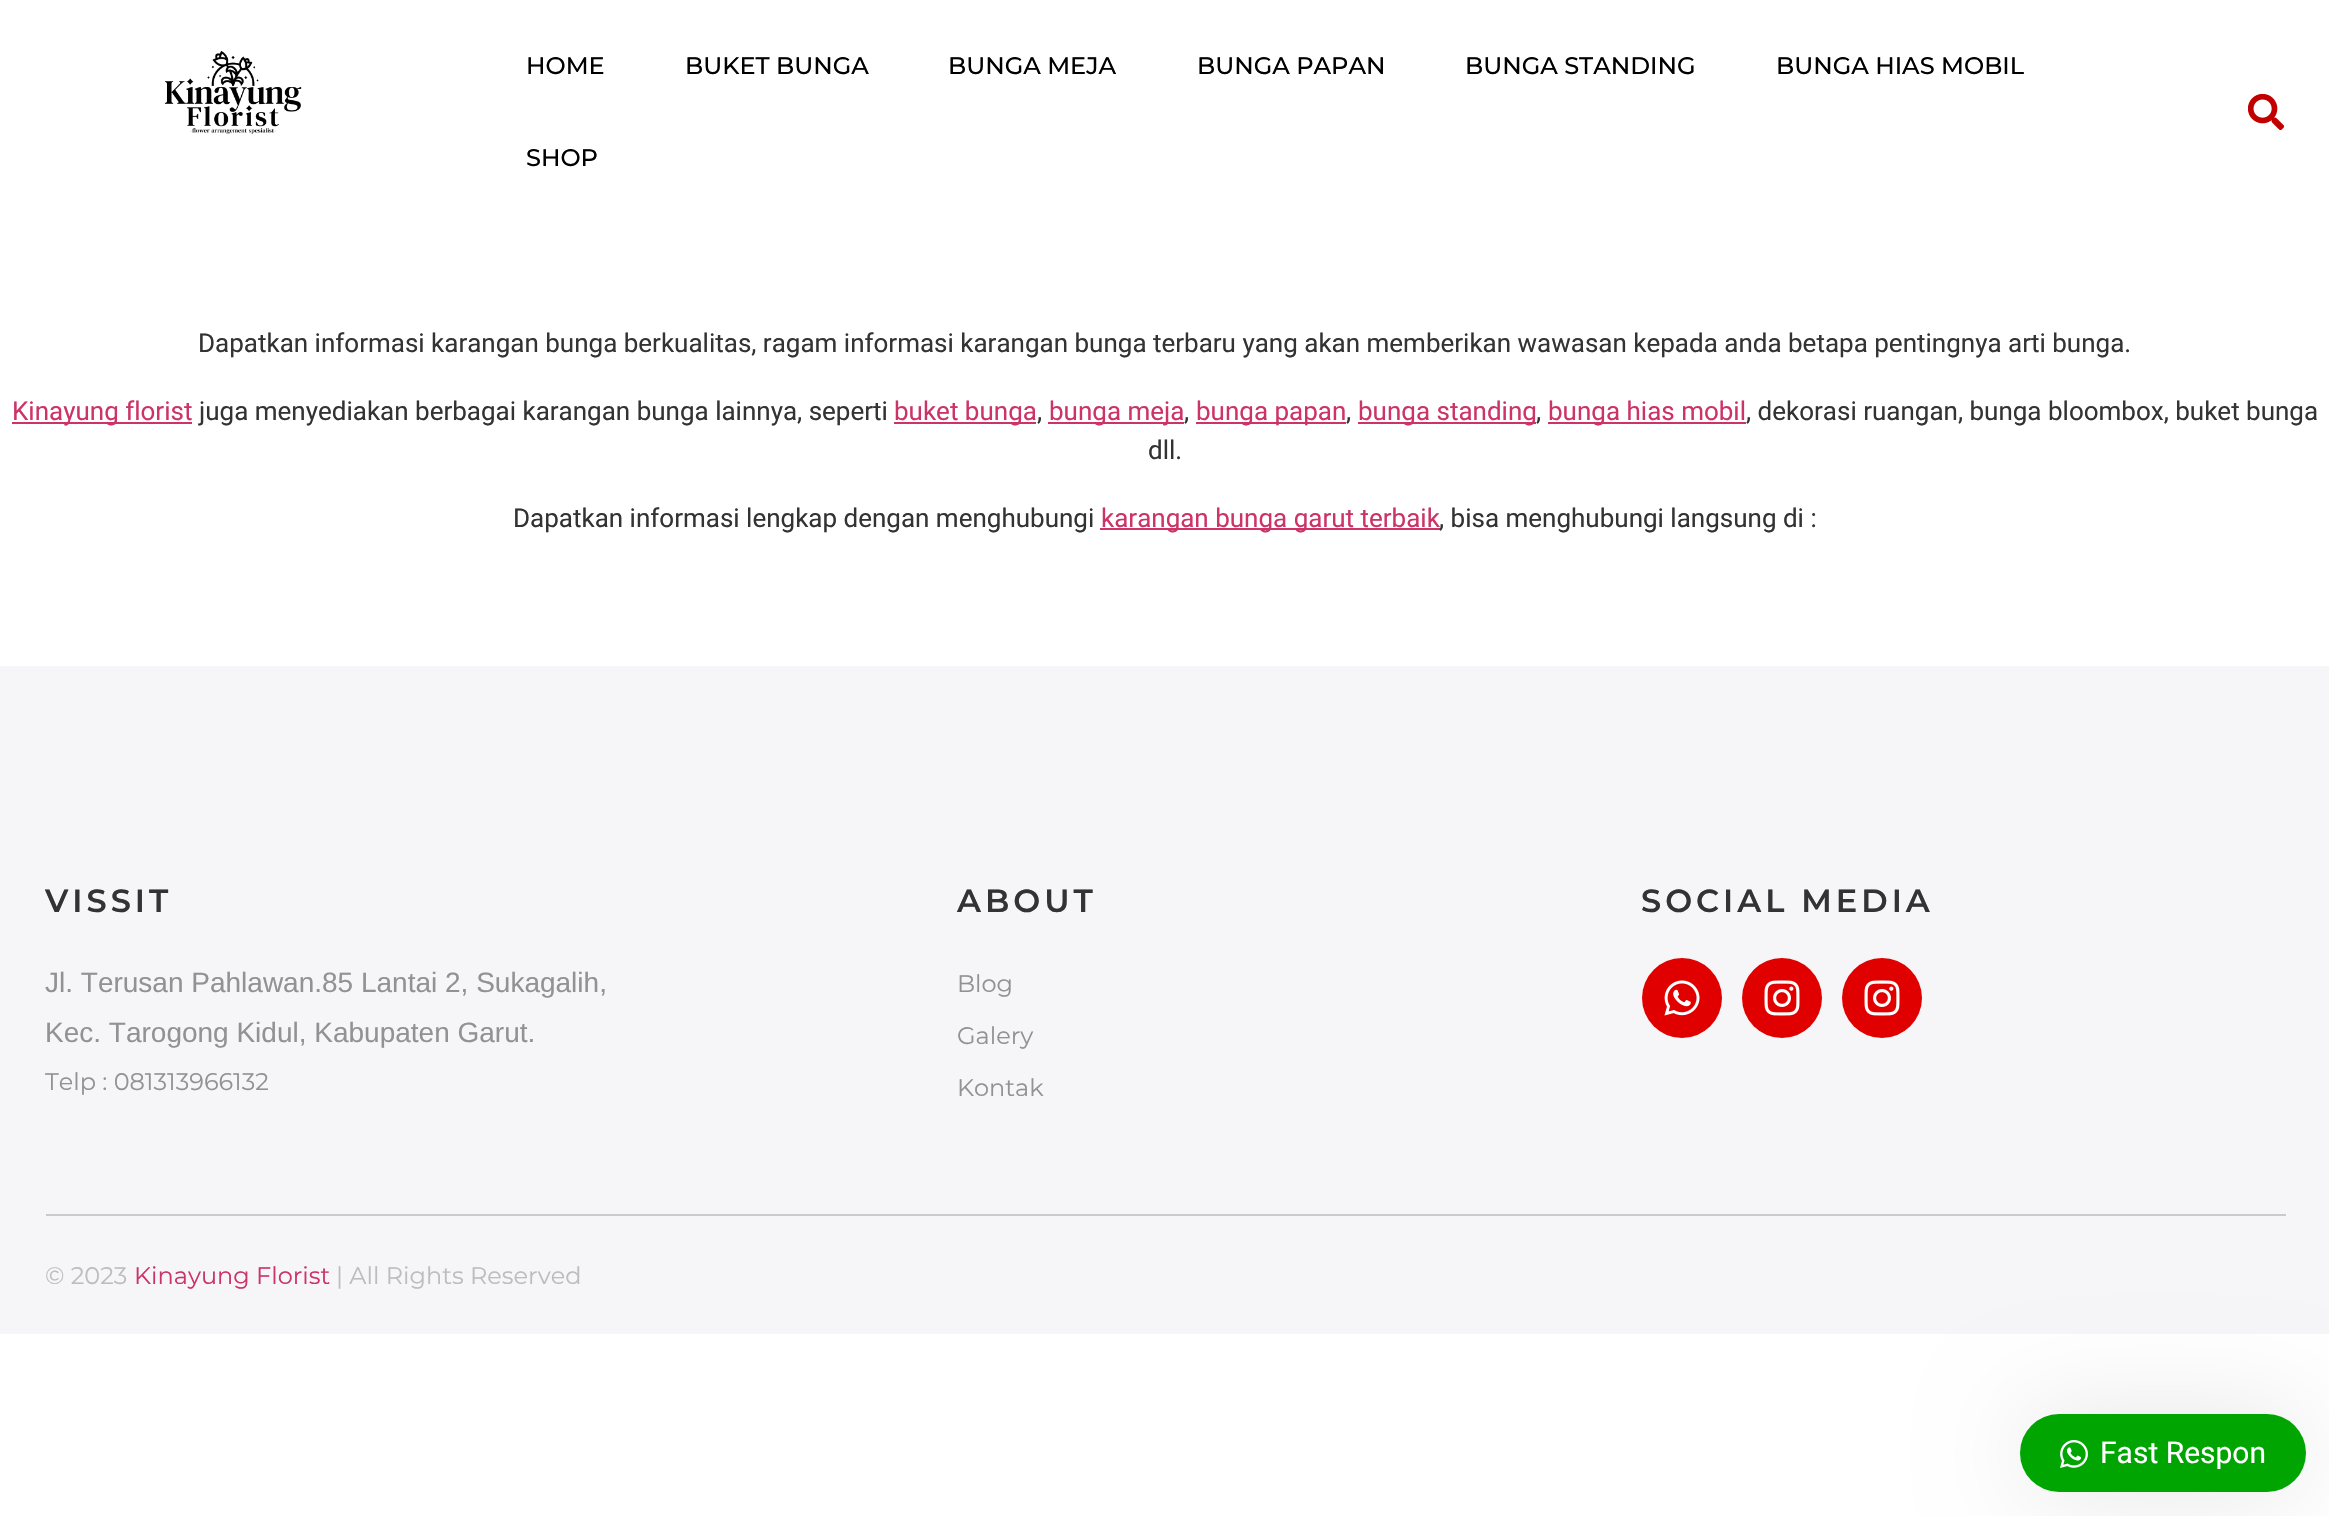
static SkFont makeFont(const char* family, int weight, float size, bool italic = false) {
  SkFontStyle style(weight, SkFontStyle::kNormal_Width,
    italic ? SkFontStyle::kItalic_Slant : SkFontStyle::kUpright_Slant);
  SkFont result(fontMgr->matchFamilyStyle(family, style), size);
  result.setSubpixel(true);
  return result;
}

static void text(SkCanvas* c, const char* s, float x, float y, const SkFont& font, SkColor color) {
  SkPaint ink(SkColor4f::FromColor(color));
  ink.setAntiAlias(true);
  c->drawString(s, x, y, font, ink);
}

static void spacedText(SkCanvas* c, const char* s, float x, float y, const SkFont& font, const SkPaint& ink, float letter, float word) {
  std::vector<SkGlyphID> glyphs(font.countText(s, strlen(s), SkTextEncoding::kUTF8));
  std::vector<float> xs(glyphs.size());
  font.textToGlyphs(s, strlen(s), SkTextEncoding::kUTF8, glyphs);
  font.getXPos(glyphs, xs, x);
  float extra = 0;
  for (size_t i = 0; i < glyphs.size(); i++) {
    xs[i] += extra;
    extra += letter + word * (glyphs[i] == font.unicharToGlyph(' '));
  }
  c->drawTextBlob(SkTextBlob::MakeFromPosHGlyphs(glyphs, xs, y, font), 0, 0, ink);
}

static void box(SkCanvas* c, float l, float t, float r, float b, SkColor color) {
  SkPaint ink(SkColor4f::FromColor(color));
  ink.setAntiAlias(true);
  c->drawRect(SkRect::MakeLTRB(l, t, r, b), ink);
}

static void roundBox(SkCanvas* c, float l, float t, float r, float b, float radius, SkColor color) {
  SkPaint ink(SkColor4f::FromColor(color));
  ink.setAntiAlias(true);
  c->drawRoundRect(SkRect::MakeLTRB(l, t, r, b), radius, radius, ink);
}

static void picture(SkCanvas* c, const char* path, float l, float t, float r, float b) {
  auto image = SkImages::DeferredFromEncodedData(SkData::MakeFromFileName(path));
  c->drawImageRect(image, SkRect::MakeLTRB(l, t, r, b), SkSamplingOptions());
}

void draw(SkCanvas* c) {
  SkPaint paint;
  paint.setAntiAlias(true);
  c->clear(0xffffffff);
  picture(c, "img_01.png", 164, 50, 302, 135);
  SkFont face1 = makeFont("Montserrat", 500, 24);
  text(c, "HOME", 526, 74, face1, 0xff000000);
  text(c, "BUKET BUNGA", 685, 74, face1, 0xff000000);
  text(c, "BUNGA MEJA", 948, 74, face1, 0xff000000);
  text(c, "BUNGA PAPAN", 1197, 74, face1, 0xff000000);
  text(c, "BUNGA STANDING", 1465, 74, face1, 0xff000000);
  text(c, "BUNGA HIAS MOBIL", 1776, 74, face1, 0xff000000);
  text(c, "SHOP", 526, 166, face1, 0xff000000);
  picture(c, "img_02.png", 2248, 94, 2284, 130);
  SkFont face2 = makeFont("Roboto", 400, 26);
  text(c, "Dapatkan informasi karangan bunga berkualitas, ragam informasi karangan bunga terbaru yang akan memberikan wawasan kepada anda betapa pentingnya arti bunga.", 198, 352, face2, 0xff333333);
  box(c, 12, 422, 192, 424, 0xffcc3366);
  text(c, "Kinayung florist", 12, 420, face2, 0xffcc3366);
  text(c, "juga menyediakan berbagai karangan bunga lainnya, seperti", 199, 420, face2, 0xff333333);
  box(c, 894, 422, 1036, 424, 0xffcc3366);
  text(c, "buket bunga", 894, 420, face2, 0xffcc3366);
  text(c, ",", 1037, 420, face2, 0xff333333);
  box(c, 1048, 422, 1184, 424, 0xffcc3366);
  text(c, "bunga meja", 1049, 420, face2, 0xffcc3366);
  text(c, ",", 1184, 420, face2, 0xff333333);
  box(c, 1196, 422, 1346, 424, 0xffcc3366);
  text(c, "bunga papan", 1196, 420, face2, 0xffcc3366);
  text(c, ",", 1346, 420, face2, 0xff333333);
  box(c, 1358, 422, 1536, 424, 0xffcc3366);
  text(c, "bunga standing", 1358, 420, face2, 0xffcc3366);
  text(c, ",", 1536, 420, face2, 0xff333333);
  box(c, 1548, 422, 1746, 424, 0xffcc3366);
  text(c, "bunga hias mobil", 1548, 420, face2, 0xffcc3366);
  text(c, ", dekorasi ruangan, bunga bloombox, buket bunga", 1746, 420, face2, 0xff333333);
  text(c, "dll.", 1148, 459, face2, 0xff333333);
  text(c, "Dapatkan informasi lengkap dengan menghubungi", 513, 527, face2, 0xff333333);
  box(c, 1100, 528, 1440, 530, 0xffcc3366);
  text(c, "karangan bunga garut terbaik", 1101, 527, face2, 0xffcc3366);
  text(c, ", bisa menghubungi langsung di :", 1439, 527, face2, 0xff333333);
  box(c, 0, 666, 2329, 1334, 0xfff6f6f8);
  SkFont face3 = makeFont("Montserrat", 600, 32);
  paint.setColor(0xff333333);
  spacedText(c, "VISSIT", 45, 912, face3, paint, 4, 0);
  SkFont face4 = makeFont("Liberation Sans", 400, 28);
  text(c, "Jl. Terusan Pahlawan.85 Lantai 2, Sukagalih,", 45, 992, face4, 0xff929292);
  text(c, "Kec. Tarogong Kidul, Kabupaten Garut.", 45, 1042, face4, 0xff929292);
  SkFont face5 = makeFont("Montserrat", 400, 24);
  text(c, "Telp : 081313966132", 45, 1090, face5, 0xff929292);
  spacedText(c, "ABOUT", 957, 912, face3, paint, 4, 0);
  text(c, "Blog", 957, 992, face5, 0xff929292);
  text(c, "Galery", 957, 1044, face5, 0xff929292);
  text(c, "Kontak", 957, 1096, face5, 0xff929292);
  spacedText(c, "SOCIAL MEDIA", 1641, 912, face3, paint, 4, 0);
  paint.setColor(0xffe00000);
  c->drawCircle(1682, 998, 40, paint);
  picture(c, "img_03.png", 1664, 980, 1700, 1016);
  c->drawCircle(1782, 998, 40, paint);
  picture(c, "img_04.png", 1764, 980, 1800, 1016);
  c->drawCircle(1882, 998, 40, paint);
  picture(c, "img_04.png", 1864, 980, 1900, 1016);
  box(c, 46, 1214, 2286, 1216, 0xffcacacb);
  text(c, "© 2023", 45, 1284, face5, 0xffbdbdbd);
  text(c, "Kinayung Florist", 134, 1284, face5, 0xffcc3366);
  text(c, "| All Rights Reserved", 336, 1284, face5, 0xffbdbdbd);
  paint.setColor(0x1a000000);
  paint.setMaskFilter(SkMaskFilter::MakeBlur(kNormal_SkBlurStyle, 50));
  c->drawRoundRect(SkRect::MakeLTRB(2020, 1414, 2306, 1492), 39, 39, paint);
  paint.setMaskFilter(nullptr);
  roundBox(c, 2020, 1414, 2306, 1492, 39, 0xff00a502);
  picture(c, "img_05.png", 2060, 1440, 2088, 1468);
  SkFont face6 = makeFont("Roboto", 400, 30);
  text(c, "Fast Respon", 2100, 1463, face6, 0xffffffff);
}
